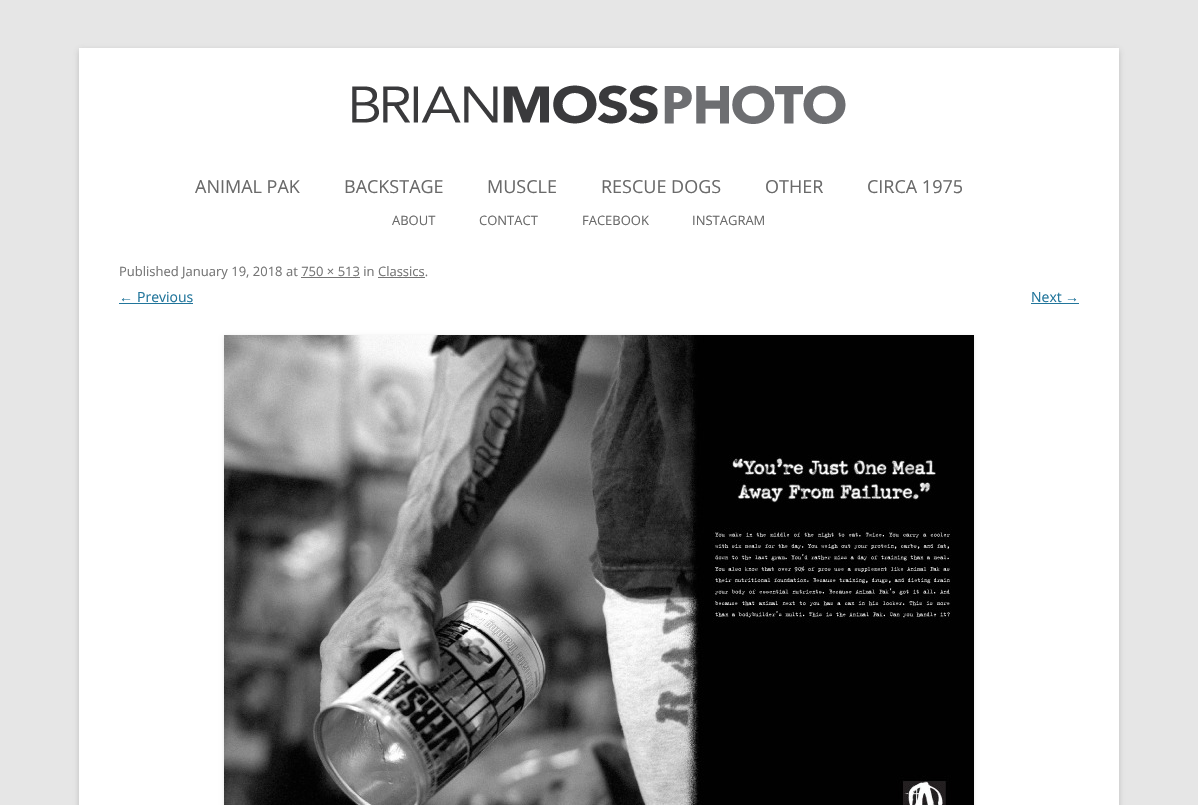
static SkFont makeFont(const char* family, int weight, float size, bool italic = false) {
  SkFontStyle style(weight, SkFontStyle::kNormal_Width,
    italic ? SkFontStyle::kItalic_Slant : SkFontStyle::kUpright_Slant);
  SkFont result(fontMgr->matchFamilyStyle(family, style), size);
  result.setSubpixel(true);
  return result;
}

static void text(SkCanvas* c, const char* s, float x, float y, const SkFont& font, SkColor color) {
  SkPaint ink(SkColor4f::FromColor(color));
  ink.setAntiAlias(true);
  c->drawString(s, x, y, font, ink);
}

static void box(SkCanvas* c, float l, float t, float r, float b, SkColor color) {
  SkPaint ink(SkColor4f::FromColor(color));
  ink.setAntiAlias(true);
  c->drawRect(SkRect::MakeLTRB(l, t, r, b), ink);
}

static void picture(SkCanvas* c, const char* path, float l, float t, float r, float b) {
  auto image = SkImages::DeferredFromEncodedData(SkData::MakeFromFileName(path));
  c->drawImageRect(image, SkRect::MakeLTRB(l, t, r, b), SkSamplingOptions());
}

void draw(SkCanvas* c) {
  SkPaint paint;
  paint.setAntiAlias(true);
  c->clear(0xffe6e6e6);
  paint.setColor(0x4d646464);
  paint.setMaskFilter(SkMaskFilter::MakeBlur(kNormal_SkBlurStyle, 3));
  c->drawRect(SkRect::MakeLTRB(79, 50, 1119, 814), paint);
  paint.setMaskFilter(nullptr);
  box(c, 79, 48, 1119, 805, 0xffffffff);
  picture(c, "img_01.png", 352, 85, 846, 124);
  SkFont face1 = makeFont("Open Sans", 400, 18);
  text(c, "ANIMAL PAK", 195, 193, face1, 0xff6a6a6a);
  text(c, "BACKSTAGE", 344, 193, face1, 0xff6a6a6a);
  text(c, "MUSCLE", 487, 193, face1, 0xff6a6a6a);
  text(c, "RESCUE DOGS", 601, 193, face1, 0xff6a6a6a);
  text(c, "OTHER", 765, 193, face1, 0xff6a6a6a);
  text(c, "CIRCA 1975", 867, 193, face1, 0xff6a6a6a);
  SkFont face2 = makeFont("Open Sans", 400, 13);
  text(c, "ABOUT", 392, 225, face2, 0xff6a6a6a);
  text(c, "CONTACT", 479, 225, face2, 0xff6a6a6a);
  text(c, "FACEBOOK", 582, 225, face2, 0xff6a6a6a);
  text(c, "INSTAGRAM", 692, 225, face2, 0xff6a6a6a);
  text(c, "Published January 19, 2018 at 750 × 513 in Classics.", 119, 276, face2, 0xff757575);
  box(c, 301, 277, 360, 278, 0xff757575);
  box(c, 378, 277, 425, 278, 0xff757575);
  SkFont face3 = makeFont("Liberation Sans", 400, 14);
  text(c, "←", 119, 302, face3, 0xff21759b);
  box(c, 119, 303, 193, 304, 0xff21759b);
  SkFont face4 = makeFont("Open Sans", 400, 14);
  text(c, "Previous", 137, 302, face4, 0xff21759b);
  text(c, "Next", 1031, 302, face4, 0xff21759b);
  text(c, "→", 1065, 302, face3, 0xff21759b);
  box(c, 1031, 303, 1079, 304, 0xff21759b);
  paint.setColor(0x1a000000);
  paint.setMaskFilter(SkMaskFilter::MakeBlur(kNormal_SkBlurStyle, 2));
  c->drawRect(SkRect::MakeLTRB(224, 336, 974, 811), paint);
  paint.setMaskFilter(nullptr);
  picture(c, "img_02.png", 224, 335, 974, 805);
}
